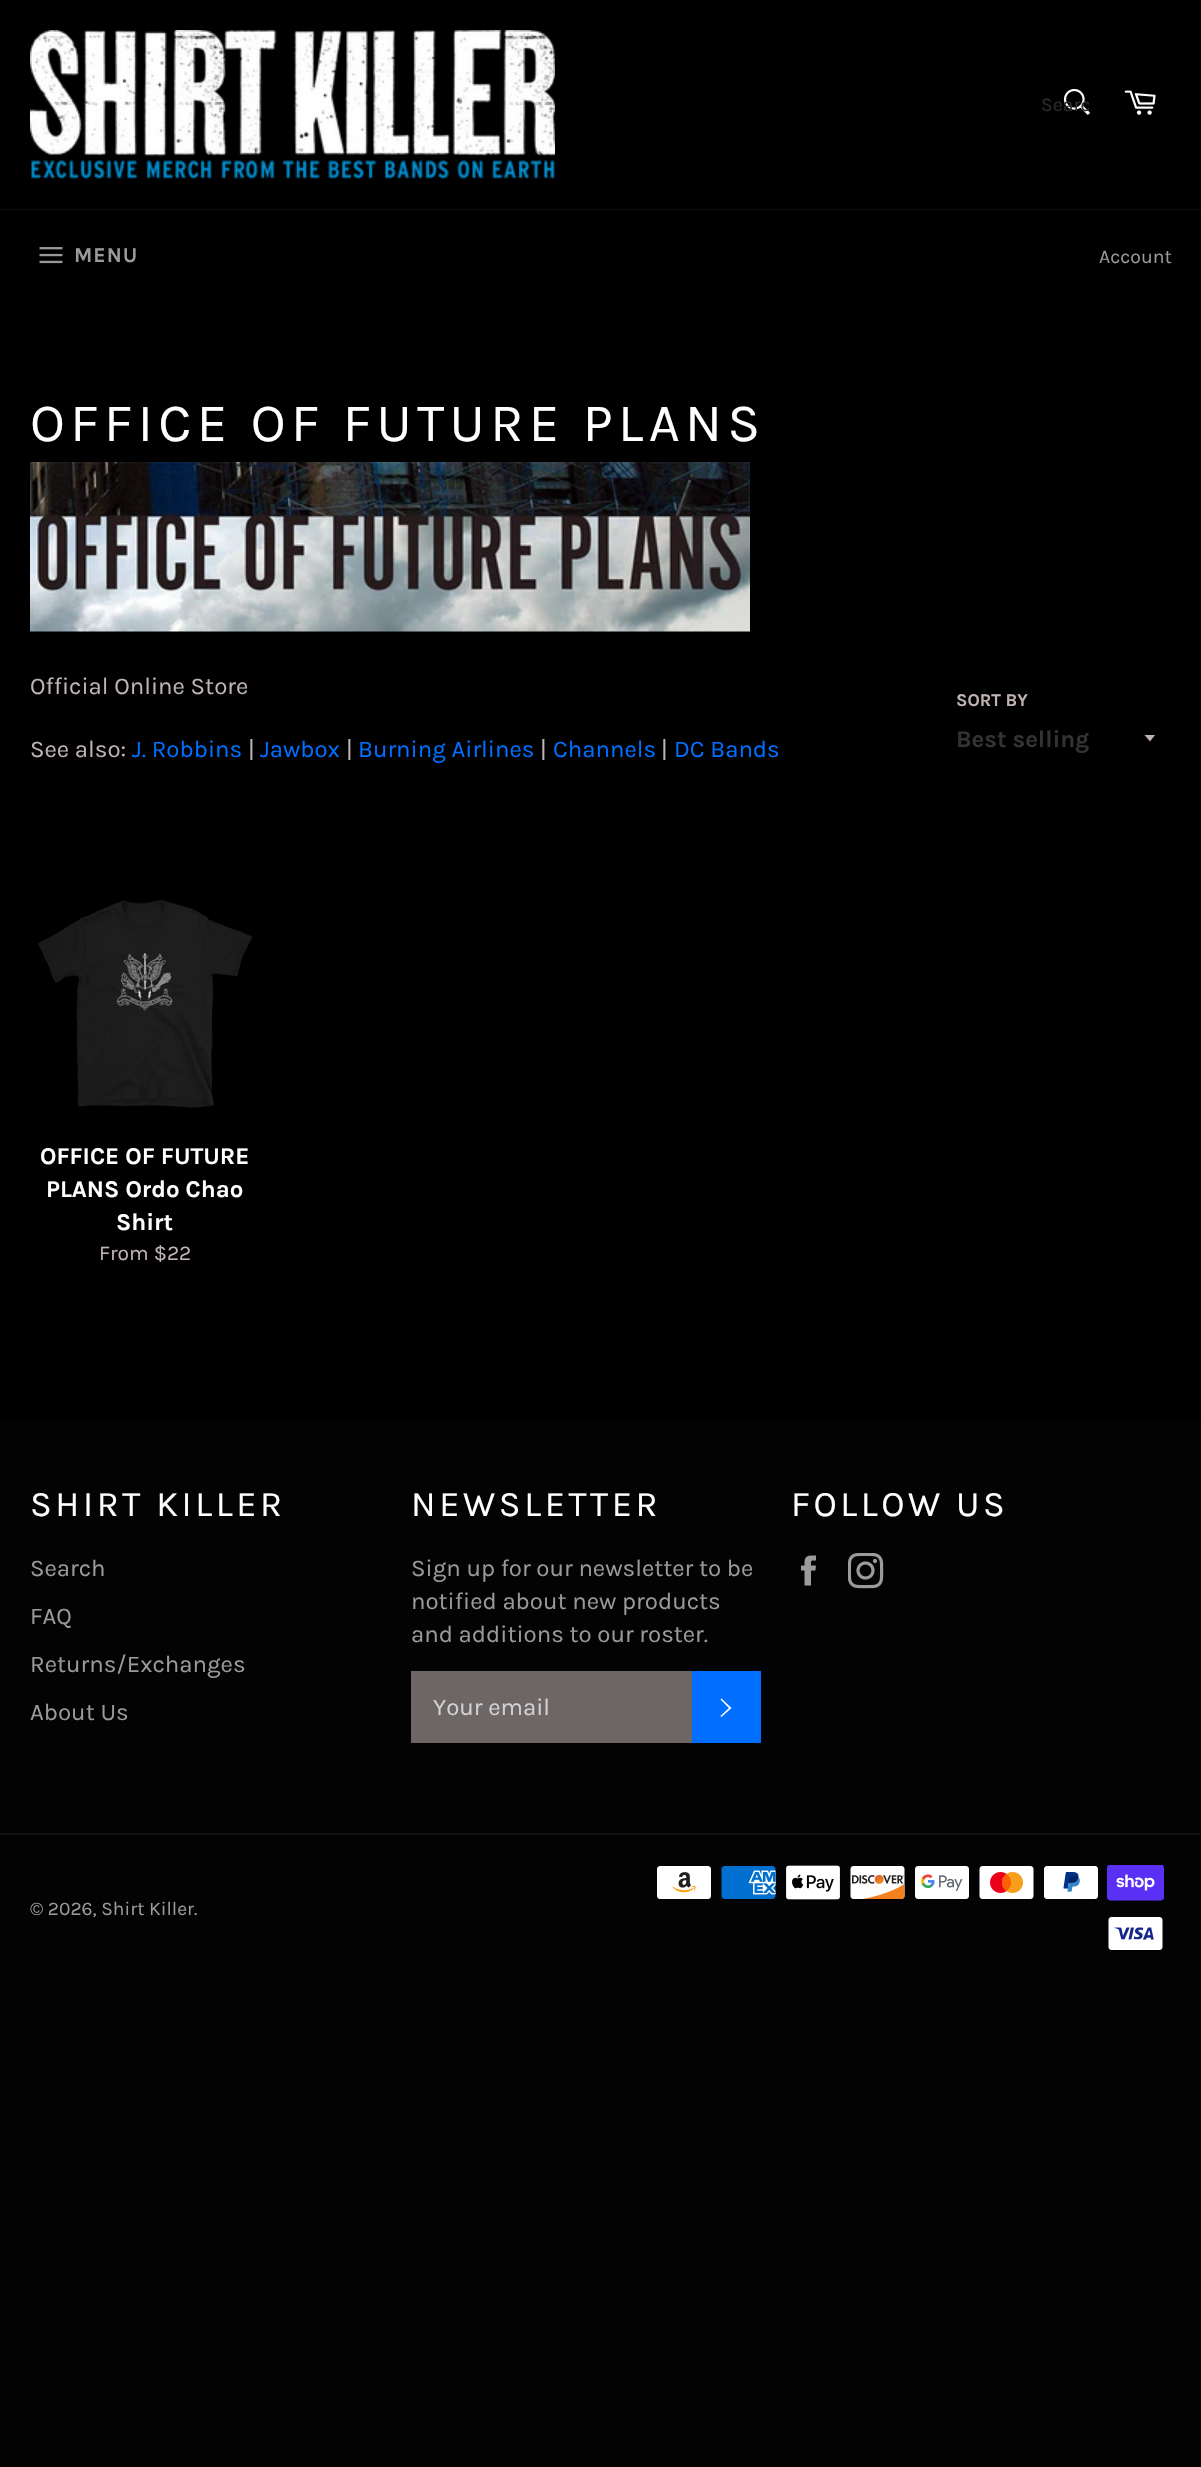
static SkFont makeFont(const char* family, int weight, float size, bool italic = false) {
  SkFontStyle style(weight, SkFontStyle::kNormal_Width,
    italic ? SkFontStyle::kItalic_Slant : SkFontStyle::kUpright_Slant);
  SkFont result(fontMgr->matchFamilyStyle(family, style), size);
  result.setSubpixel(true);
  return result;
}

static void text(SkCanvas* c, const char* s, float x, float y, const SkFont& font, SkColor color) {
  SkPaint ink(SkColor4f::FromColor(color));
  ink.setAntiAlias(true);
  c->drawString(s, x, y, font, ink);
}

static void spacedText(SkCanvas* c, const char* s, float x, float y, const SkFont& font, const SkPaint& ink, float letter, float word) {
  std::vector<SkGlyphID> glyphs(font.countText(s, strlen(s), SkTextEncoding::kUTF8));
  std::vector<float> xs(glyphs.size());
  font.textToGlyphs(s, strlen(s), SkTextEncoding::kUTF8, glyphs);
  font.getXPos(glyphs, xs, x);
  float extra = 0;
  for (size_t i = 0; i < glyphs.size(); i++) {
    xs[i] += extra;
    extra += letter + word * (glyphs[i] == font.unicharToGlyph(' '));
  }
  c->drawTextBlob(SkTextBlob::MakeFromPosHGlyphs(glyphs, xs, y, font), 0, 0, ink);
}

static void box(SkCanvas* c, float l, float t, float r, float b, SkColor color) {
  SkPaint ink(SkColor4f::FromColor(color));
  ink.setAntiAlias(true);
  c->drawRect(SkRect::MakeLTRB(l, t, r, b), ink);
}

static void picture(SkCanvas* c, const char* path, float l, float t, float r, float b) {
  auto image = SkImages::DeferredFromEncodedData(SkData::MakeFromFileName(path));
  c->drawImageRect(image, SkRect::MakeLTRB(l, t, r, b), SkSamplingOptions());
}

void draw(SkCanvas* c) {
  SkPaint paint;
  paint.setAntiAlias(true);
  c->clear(0xff030303);
  box(c, 0, 0, 1201, 1421, 0xff000000);
  picture(c, "img_01.png", 30, 30, 555, 179);
  picture(c, "img_02.png", 1063, 88, 1090, 115);
  c->save();
  c->clipRect(SkRect::MakeLTRB(1041, 93, 1089, 116));
  SkFont face1 = makeFont("Karla", 400, 19.5f);
  text(c, "Searc", 1041, 111, face1, 0xff2c2c2c);
  c->restore();
  picture(c, "img_03.png", 1124, 90, 1156, 115);
  box(c, 0, 209, 1201, 210, 0xff0d0d0d);
  picture(c, "img_04.png", 39, 247, 63, 264);
  SkFont face2 = makeFont("Karla", 700, 21);
  paint.setColor(0xff9a9a9a);
  spacedText(c, "MENU", 74, 262, face2, paint, 1, 0);
  text(c, "Account", 1099, 263, face1, 0xff9a9a9a);
  SkFont face3 = makeFont("Karla", 400, 54);
  paint.setColor(0xffffffff);
  spacedText(c, "OFFICE OF FUTURE PLANS", 30, 441, face3, paint, 5.4f, 0);
  picture(c, "img_05.png", 30, 462, 750, 632);
  SkFont face4 = makeFont("Karla", 400, 24);
  text(c, "Official Online Store", 30, 694, face4, 0xffc0b3b3);
  text(c, "See also:", 30, 757, face4, 0xffc0b3b3);
  text(c, "J. Robbins", 132, 757, face4, 0xff006eff);
  text(c, "|", 248, 757, face4, 0xffc0b3b3);
  text(c, "Jawbox", 260, 757, face4, 0xff006eff);
  text(c, "|", 346, 757, face4, 0xffc0b3b3);
  text(c, "Burning Airlines", 358, 757, face4, 0xff006eff);
  text(c, "|", 540, 757, face4, 0xffc0b3b3);
  text(c, "Channels", 553, 757, face4, 0xff006eff);
  text(c, "|", 661, 757, face4, 0xffc0b3b3);
  text(c, "DC Bands", 674, 757, face4, 0xff006eff);
  SkFont face5 = makeFont("Karla", 700, 18);
  text(c, "SORT BY", 956, 706, face5, 0xffc0b3b3);
  paint.setColor(0xffc0b3b3);
  c->drawPath(SkPathBuilder().moveTo(1144.5f, 735).lineTo(1150, 741.5f).lineTo(1155, 735).close().detach(), paint);
  SkFont face6 = makeFont("Karla", 700, 24);
  text(c, "Best selling", 956, 747, face6, 0xff333333);
  picture(c, "img_06.png", 38, 900, 253, 1108);
  text(c, "OFFICE OF FUTURE", 40, 1164, face6, 0xffffffff);
  text(c, "PLANS Ordo Chao", 46, 1197, face6, 0xffffffff);
  text(c, "Shirt", 116, 1230, face6, 0xffffffff);
  SkFont face7 = makeFont("Karla", 400, 21);
  text(c, "From $22", 99, 1260, face7, 0xffc0b3b3);
  SkFont face8 = makeFont("Karla", 400, 36);
  paint.setColor(0xffffffff);
  spacedText(c, "SHIRT KILLER", 30, 1516, face8, paint, 3.6f, 0);
  text(c, "Search", 30, 1576, face4, 0xff9a9a9a);
  text(c, "FAQ", 30, 1624, face4, 0xff9a9a9a);
  text(c, "Returns/Exchanges", 30, 1672, face4, 0xff9a9a9a);
  text(c, "About Us", 30, 1720, face4, 0xff9a9a9a);
  spacedText(c, "NEWSLETTER", 411, 1516, face8, paint, 3.6f, 0);
  text(c, "Sign up for our newsletter to be", 411, 1576, face4, 0xff9a9a9a);
  text(c, "notified about new products", 411, 1609, face4, 0xff9a9a9a);
  text(c, "and additions to our roster.", 411, 1642, face4, 0xff9a9a9a);
  box(c, 411, 1671, 692, 1743, 0xff6c6666);
  text(c, "Your email", 433, 1715, face4, 0xffd3d1d1);
  box(c, 692, 1671, 761, 1743, 0xff006eff);
  c->drawPath(SkPathBuilder().moveTo(720.5f, 1699.5f).lineTo(721.5f, 1698.5f).lineTo(731.5f, 1708).lineTo(721.5f, 1717).lineTo(720.5f, 1716).lineTo(729, 1708).close().detach(), paint);
  spacedText(c, "FOLLOW US", 791, 1516, face8, paint, 3.6f, 0);
  picture(c, "img_07.png", 801, 1555, 816, 1586);
  picture(c, "img_08.png", 848, 1553, 884, 1589);
  box(c, 0, 1833, 1201, 1835, 0xff101010);
  SkFont face9 = makeFont("Karla", 400, 19.25f);
  text(c, "© 2026, Shirt Killer.", 30, 1915, face9, 0xff9a9a9a);
  picture(c, "img_09.png", 657, 1866, 711, 1899);
  picture(c, "img_10.png", 721, 1866, 776, 1899);
  picture(c, "img_11.png", 786, 1865, 840, 1900);
  picture(c, "img_12.png", 850, 1866, 905, 1899);
  picture(c, "img_13.png", 915, 1866, 969, 1899);
  picture(c, "img_14.png", 979, 1866, 1034, 1899);
  picture(c, "img_15.png", 1044, 1866, 1098, 1899);
  picture(c, "img_16.png", 1107, 1865, 1164, 1901);
  picture(c, "img_17.png", 1108, 1917, 1163, 1950);
}
